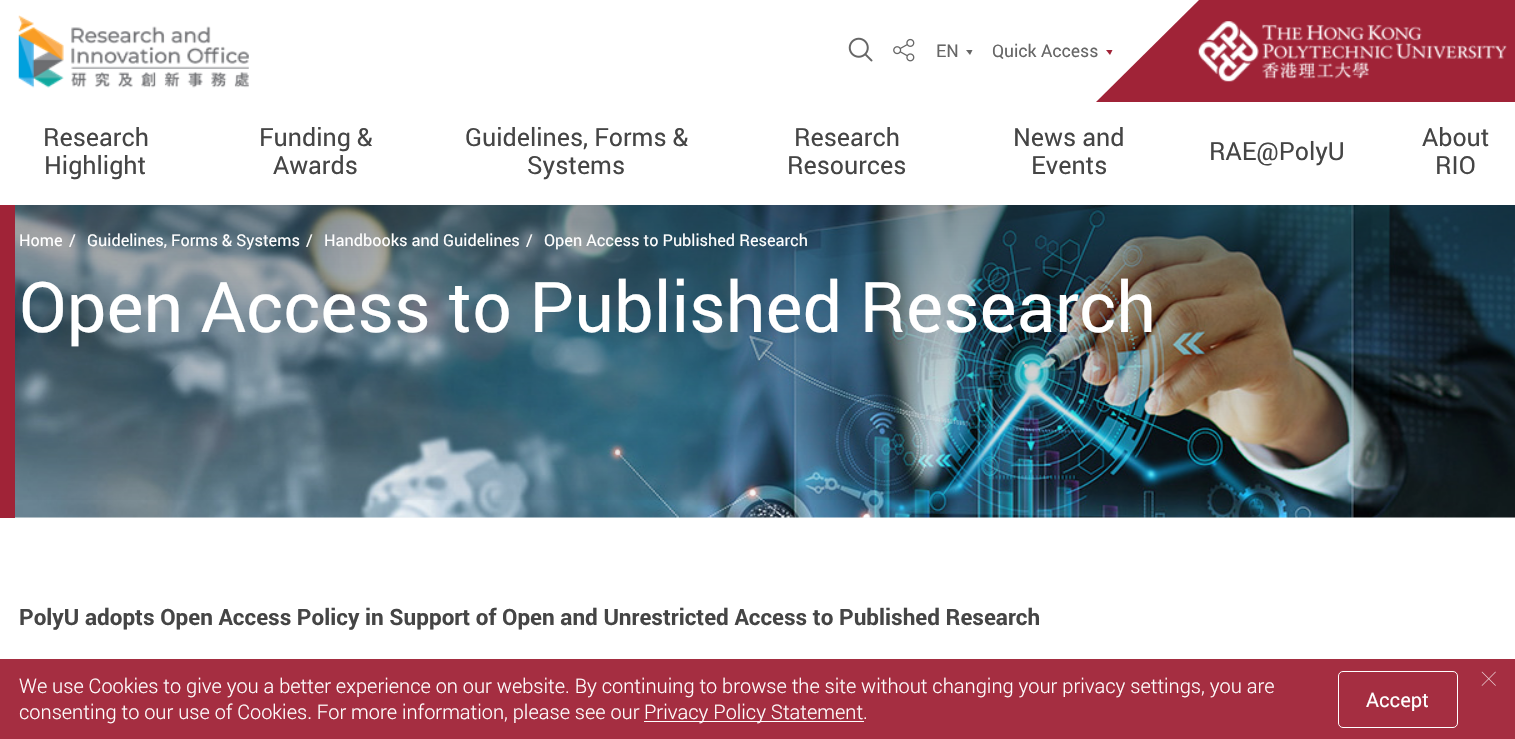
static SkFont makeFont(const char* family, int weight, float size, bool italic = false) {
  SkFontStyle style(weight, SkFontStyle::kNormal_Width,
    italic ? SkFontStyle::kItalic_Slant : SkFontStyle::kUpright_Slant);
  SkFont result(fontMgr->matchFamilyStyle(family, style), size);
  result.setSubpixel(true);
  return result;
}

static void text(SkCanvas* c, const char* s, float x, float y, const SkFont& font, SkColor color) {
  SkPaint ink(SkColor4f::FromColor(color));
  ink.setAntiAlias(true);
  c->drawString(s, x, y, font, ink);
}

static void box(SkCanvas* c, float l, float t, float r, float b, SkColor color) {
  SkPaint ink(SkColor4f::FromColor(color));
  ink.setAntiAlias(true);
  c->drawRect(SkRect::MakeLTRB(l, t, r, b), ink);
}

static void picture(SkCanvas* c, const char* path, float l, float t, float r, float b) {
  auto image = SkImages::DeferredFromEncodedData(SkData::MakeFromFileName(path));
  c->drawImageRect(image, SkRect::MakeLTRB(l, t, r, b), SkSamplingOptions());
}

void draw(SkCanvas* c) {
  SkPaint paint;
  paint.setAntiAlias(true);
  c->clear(0xffffffff);
  box(c, 0, 659, 1515, 739, 0xffa52e41);
  picture(c, "img_01.png", 18, 15, 249, 88);
  picture(c, "img_02.png", 848, 37, 873, 62);
  picture(c, "img_03.png", 893, 38, 915, 62);
  SkFont face1 = makeFont("Roboto", 400, 17.5f);
  text(c, "EN", 936, 57, face1, 0xff666666);
  paint.setColor(0xff666666);
  c->drawPath(SkPathBuilder().moveTo(966, 50).lineTo(972.5f, 50).lineTo(970, 55).close().detach(), paint);
  text(c, "Quick Access", 992, 57, face1, 0xff666666);
  paint.setColor(0xffa02337);
  c->drawPath(SkPathBuilder().moveTo(1106, 50).lineTo(1112.5f, 50).lineTo(1110, 55).close().detach(), paint);
  c->drawPath(SkPathBuilder().moveTo(1199, 0).lineTo(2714, 0).lineTo(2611, 102).lineTo(1096, 102).close().detach(), paint);
  picture(c, "img_04.png", 1198, 21, 1507, 82);
  SkFont face2 = makeFont("Roboto", 400, 25);
  text(c, "Research", 43, 146, face2, 0xff454545);
  text(c, "Highlight", 44, 174, face2, 0xff454545);
  text(c, "Funding &", 259, 146, face2, 0xff454545);
  text(c, "Awards", 273, 174, face2, 0xff454545);
  text(c, "Guidelines, Forms &", 465, 146, face2, 0xff454545);
  text(c, "Systems", 527, 174, face2, 0xff454545);
  text(c, "Research", 794, 146, face2, 0xff454545);
  text(c, "Resources", 787, 174, face2, 0xff454545);
  text(c, "News and", 1013, 146, face2, 0xff454545);
  text(c, "Events", 1031, 174, face2, 0xff454545);
  text(c, "RAE@PolyU", 1209, 160, face2, 0xff454545);
  text(c, "About", 1422, 146, face2, 0xff454545);
  text(c, "RIO", 1435, 174, face2, 0xff454545);
  box(c, 15, 517, 1515, 518, 0xfff8f8f8);
  picture(c, "img_05.png", 15, 205, 1515, 518);
  {
    const SkColor colors[] = {0x61000000, 0x00000000};
    const float stops[] = {0, 1};
    const SkPoint ends[] = {{758, 205}, {758, 518}};
    paint.setShader(SkGradientShader::MakeLinear(ends, colors, stops, 2, SkTileMode::kClamp));
    paint.setAlpha(255);
  }
  c->drawRect(SkRect::MakeLTRB(15, 205, 1515, 500), paint);
  box(c, 0, 205, 15, 518, 0xffa02337);
  SkFont face3 = makeFont("Roboto", 400, 16.25f);
  text(c, "Home", 19, 246, face3, 0xffffffff);
  text(c, "/", 69, 246, face3, 0xffffffff);
  text(c, "Guidelines, Forms & Systems", 87, 246, face3, 0xffffffff);
  text(c, "/", 306, 246, face3, 0xffffffff);
  text(c, "Handbooks and Guidelines", 324, 246, face3, 0xffffffff);
  text(c, "/", 526, 246, face3, 0xffffffff);
  text(c, "Open Access to Published Research", 544, 246, face3, 0xffffffff);
  SkFont face4 = makeFont("Roboto", 400, 70);
  text(c, "Open Access to Published Research", 19, 332, face4, 0xffffffff);
  SkFont face5 = makeFont("Roboto", 700, 22.5f);
  text(c, "PolyU adopts Open Access Policy in Support of Open and Unrestricted Access to Published Research", 19, 625, face5, 0xff454545);
  SkFont face6 = makeFont("Roboto", 300, 20);
  text(c, "We use Cookies to give you a better experience on our website. By continuing to browse the site without changing your privacy settings, you are", 19, 693, face6, 0xffffffff);
  text(c, "consenting to our use of Cookies. For more information, please see our", 19, 719, face6, 0xffffffff);
  box(c, 644, 721, 864, 722, 0xffffffff);
  text(c, "Privacy Policy Statement.", 644, 719, face6, 0xffffffff);
  paint.setStyle(SkPaint::kStroke_Style);
  paint.setStrokeWidth(1);
  paint.setShader(nullptr);
  paint.setColor(0xffffffff);
  c->drawRoundRect(SkRect::MakeLTRB(1338.5f, 671.5f, 1457.5f, 727.5f), 4.5f, 4.5f, paint);
  SkFont face7 = makeFont("Roboto", 400, 20);
  text(c, "Accept", 1366, 707, face7, 0xffffffff);
  picture(c, "img_06.png", 1481, 671, 1496, 686);
}
